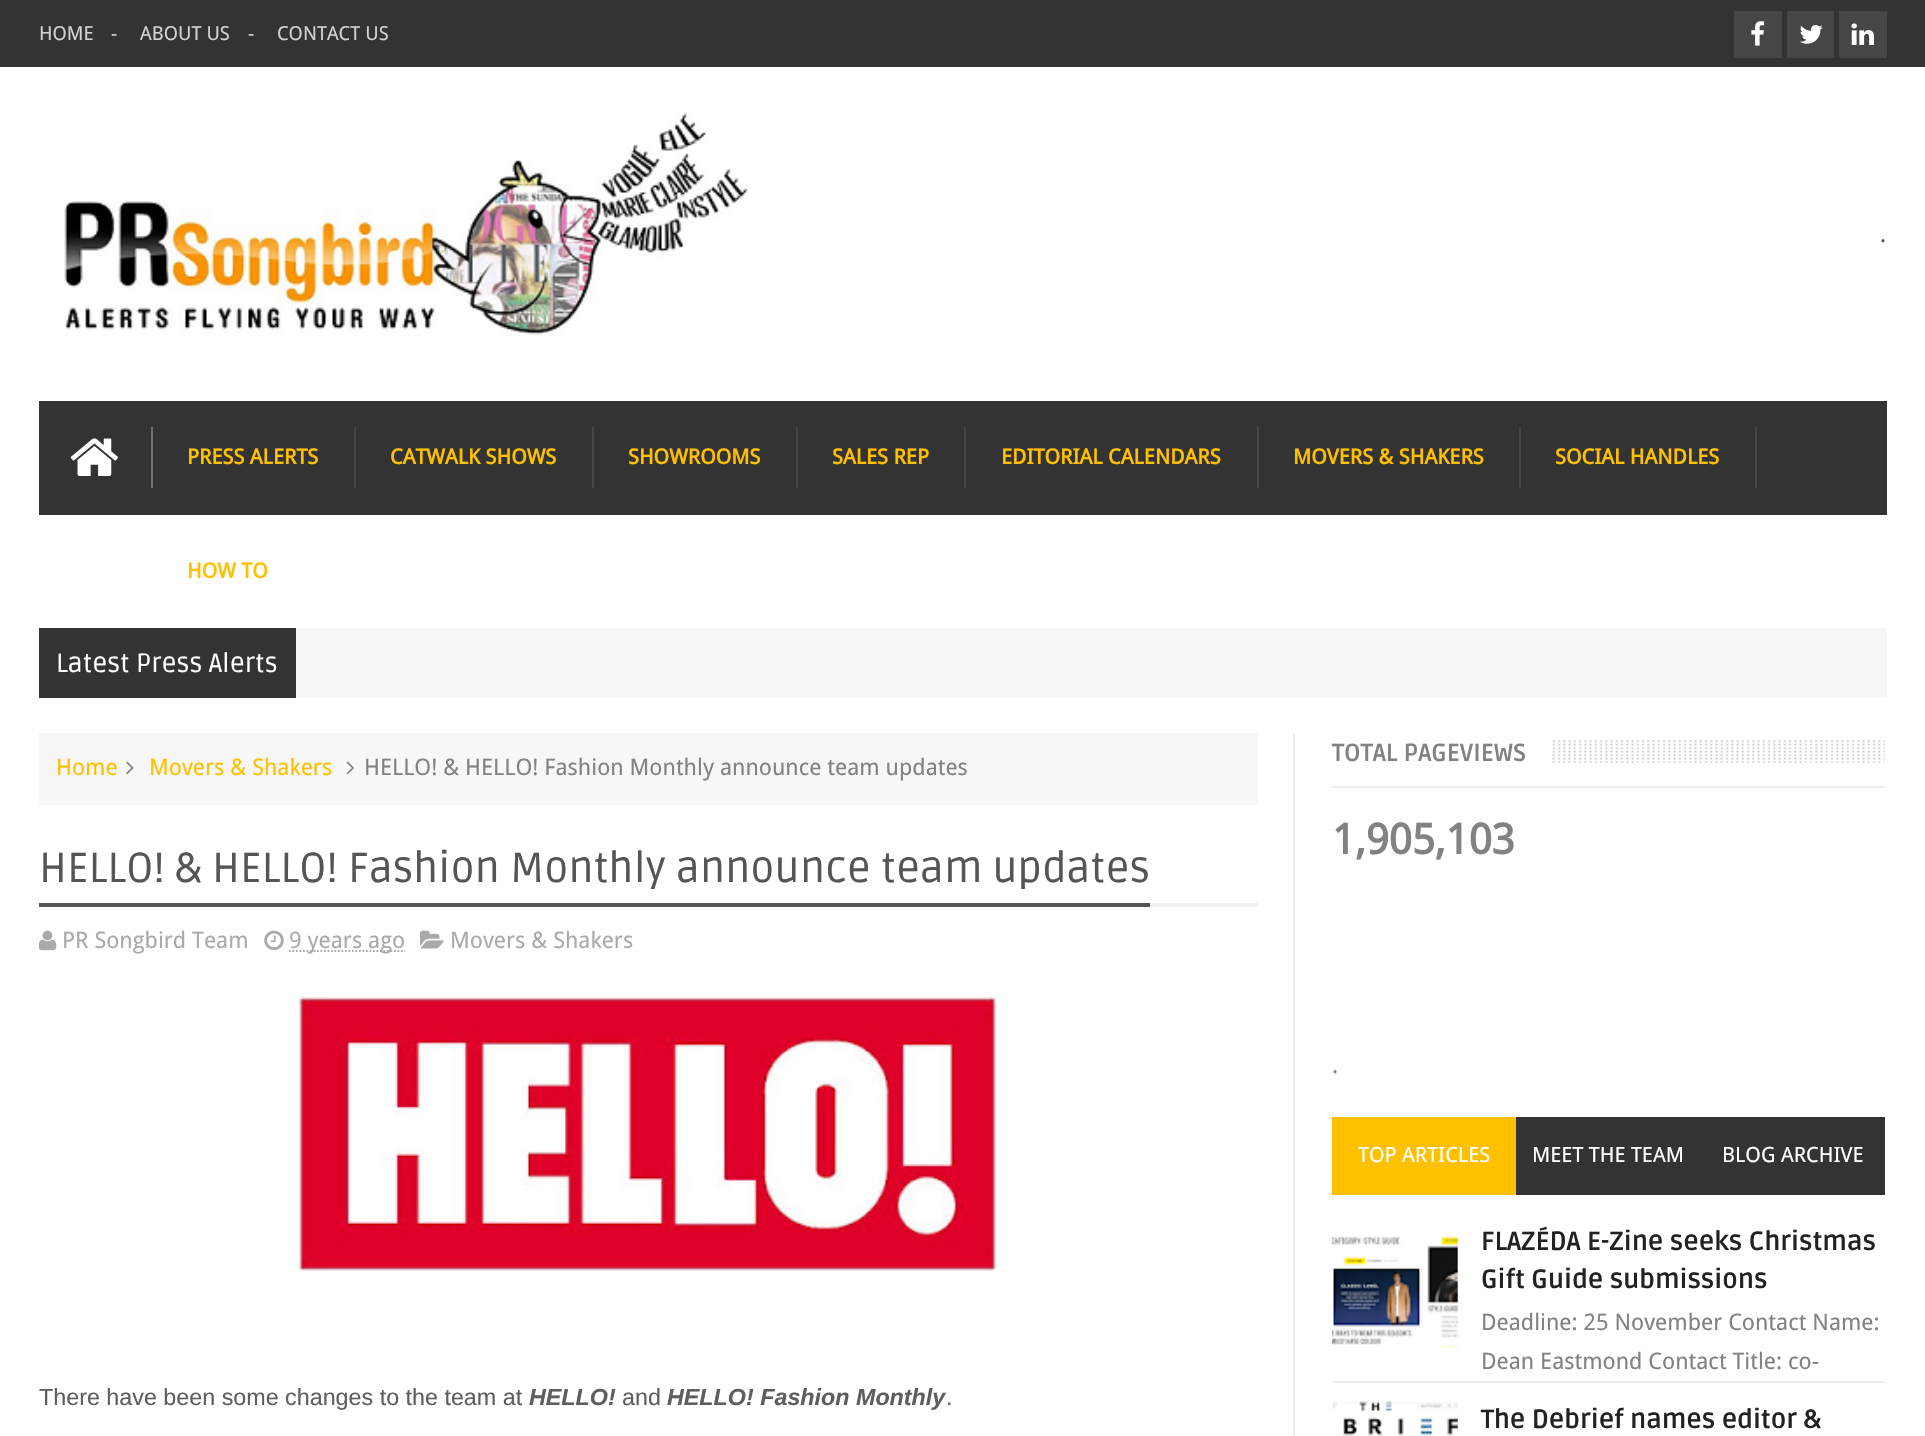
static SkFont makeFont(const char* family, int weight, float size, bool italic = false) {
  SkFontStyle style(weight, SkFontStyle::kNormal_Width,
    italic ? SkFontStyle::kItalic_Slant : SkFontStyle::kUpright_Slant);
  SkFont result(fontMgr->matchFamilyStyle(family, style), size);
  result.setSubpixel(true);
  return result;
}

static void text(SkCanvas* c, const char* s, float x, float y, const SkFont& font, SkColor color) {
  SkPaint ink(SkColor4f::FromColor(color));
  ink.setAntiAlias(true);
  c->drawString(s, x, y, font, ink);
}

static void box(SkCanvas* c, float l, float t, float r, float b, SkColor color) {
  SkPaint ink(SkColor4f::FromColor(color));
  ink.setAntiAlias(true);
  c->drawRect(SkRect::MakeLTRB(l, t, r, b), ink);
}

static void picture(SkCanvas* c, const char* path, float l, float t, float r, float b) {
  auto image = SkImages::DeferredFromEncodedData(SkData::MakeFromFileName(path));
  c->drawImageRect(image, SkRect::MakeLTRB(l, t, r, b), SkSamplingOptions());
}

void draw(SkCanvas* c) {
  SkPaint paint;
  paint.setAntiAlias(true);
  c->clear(0xffffffff);
  box(c, 0, 0, 1925, 67, 0xff333333);
  SkFont face1 = makeFont("Droid Sans", 400, 19.25f);
  text(c, "HOME", 39, 40, face1, 0xffd1d1d1);
  text(c, "-", 111, 40, face1, 0xffd1d1d1);
  text(c, "ABOUT US", 140, 40, face1, 0xffd1d1d1);
  text(c, "-", 248, 40, face1, 0xffd1d1d1);
  text(c, "CONTACT US", 277, 40, face1, 0xffd1d1d1);
  box(c, 1734, 11, 1782, 58, 0xff474545);
  picture(c, "img_01.png", 1751, 21, 1765, 46);
  box(c, 1787, 11, 1834, 58, 0xff474545);
  picture(c, "img_02.png", 1799, 25, 1823, 44);
  box(c, 1839, 11, 1887, 58, 0xff474545);
  picture(c, "img_03.png", 1851, 23, 1874, 45);
  picture(c, "img_04.png", 64, 113, 748, 336);
  SkFont face2 = makeFont("Droid Sans", 400, 22.75f);
  text(c, ".", 1880, 242, face2, 0xff555555);
  box(c, 39, 401, 1887, 515, 0xff333333);
  box(c, 151, 427, 153, 488, 0xff707070);
  picture(c, "img_05.png", 70, 438, 118, 476);
  box(c, 354, 427, 356, 488, 0xff474747);
  SkFont face3 = makeFont("Droid Sans", 700, 21);
  text(c, "PRESS ALERTS", 187, 464, face3, 0xffffc000);
  box(c, 592, 427, 594, 488, 0xff474747);
  text(c, "CATWALK SHOWS", 390, 464, face3, 0xffffc000);
  box(c, 796, 427, 798, 488, 0xff474747);
  text(c, "SHOWROOMS", 628, 464, face3, 0xffffc000);
  box(c, 964, 427, 966, 488, 0xff474747);
  text(c, "SALES REP", 832, 464, face3, 0xffffc000);
  box(c, 1257, 427, 1259, 488, 0xff474747);
  text(c, "EDITORIAL CALENDARS", 1001, 464, face3, 0xffffc000);
  box(c, 1519, 427, 1521, 488, 0xff474747);
  text(c, "MOVERS & SHAKERS", 1293, 464, face3, 0xffffc000);
  box(c, 1755, 427, 1757, 488, 0xff474747);
  text(c, "SOCIAL HANDLES", 1555, 464, face3, 0xffffc000);
  text(c, "HOW TO", 187, 578, face3, 0xffffc000);
  box(c, 296, 628, 1887, 698, 0xfff7f7f7);
  box(c, 39, 628, 296, 698, 0xff333333);
  SkFont face4 = makeFont("Ruda", 400, 26.25f);
  text(c, "Latest Press Alerts", 56, 672, face4, 0xffffffff);
  box(c, 1293, 733, 1295, 1436, 0xffeeeeee);
  box(c, 39, 733, 1258, 805, 0xfff7f7f7);
  text(c, "Home", 56, 775, face2, 0xffffc000);
  picture(c, "img_06.png", 126, 761, 134, 775);
  text(c, "Movers & Shakers", 149, 775, face2, 0xffffc000);
  picture(c, "img_07.png", 346, 761, 354, 775);
  text(c, "HELLO! & HELLO! Fashion Monthly announce team updates", 364, 775, face2, 0xff828282);
  box(c, 1150, 903, 1258, 907, 0xffeeeeee);
  box(c, 39, 903, 1150, 907, 0xff555555);
  SkFont face5 = makeFont("Ruda", 400, 42);
  text(c, "HELLO! & HELLO! Fashion Monthly announce team updates", 39, 882, face5, 0xff555555);
  picture(c, "img_08.png", 39, 930, 57, 951);
  text(c, "PR Songbird Team", 62, 948, face2, 0xffaaaaaa);
  picture(c, "img_09.png", 264, 930, 284, 951);
  paint.setStyle(SkPaint::kStroke_Style);
  paint.setStrokeWidth(1.8f);
  paint.setColor(0xffaaaaaa);
  paint.setPathEffect(SkDashPathEffect::Make({{1.75f, 1.75f}}, 0));
  c->drawPath(SkPathBuilder().moveTo(289, 951).lineTo(405, 951).detach(), paint);
  paint.setPathEffect(nullptr);
  text(c, "9 years ago", 289, 948, face2, 0xffaaaaaa);
  picture(c, "img_10.png", 420, 930, 444, 949);
  text(c, "Movers & Shakers", 450, 948, face2, 0xffaaaaaa);
  picture(c, "img_11.png", 297, 996, 998, 1272);
  SkFont face6 = makeFont("Liberation Sans", 400, 23.3f);
  text(c, "There have been some changes to the team at", 39, 1405, face6, 0xff5e5e5e);
  SkFont face7 = makeFont("Liberation Sans", 700, 23.3f, true);
  text(c, "HELLO!", 529, 1405, face7, 0xff5e5e5e);
  text(c, "and", 622, 1405, face6, 0xff5e5e5e);
  text(c, "HELLO! Fashion Monthly", 667, 1405, face7, 0xff5e5e5e);
  text(c, ".", 946, 1405, face6, 0xff5e5e5e);
  picture(c, "img_12.png", 1552, 740, 1885, 763);
  box(c, 1332, 786, 1885, 788, 0xffeeeeee);
  SkFont face8 = makeFont("Ruda", 700, 24.5f);
  text(c, "TOTAL PAGEVIEWS", 1332, 761, face8, 0xff828282);
  SkFont face9 = makeFont("Droid Sans", 700, 42);
  text(c, "1,905,103", 1332, 854, face9, 0xff828282);
  text(c, ".", 1332, 1073, face2, 0xff828282);
  box(c, 1332, 1117, 1516, 1195, 0xffffc000);
  SkFont face10 = makeFont("Droid Sans", 400, 21);
  text(c, "TOP ARTICLES", 1358, 1162, face10, 0xffffffff);
  box(c, 1516, 1117, 1885, 1195, 0xff333333);
  text(c, "MEET THE TEAM", 1532, 1162, face10, 0xffffffff);
  text(c, "BLOG ARCHIVE", 1722, 1162, face10, 0xffffffff);
  box(c, 1332, 1381, 1885, 1383, 0xffeeeeee);
  picture(c, "img_13.png", 1331, 1236, 1458, 1348);
  SkFont face11 = makeFont("Ruda", 700, 26.25f);
  text(c, "FLAZÉDA E-Zine seeks Christmas", 1481, 1250, face11, 0xff222222);
  text(c, "Gift Guide submissions", 1481, 1288, face11, 0xff222222);
  text(c, "Deadline: 25 November Contact Name:", 1481, 1330, face2, 0xff828282);
  text(c, "Dean Eastmond Contact Title: co-", 1481, 1369, face2, 0xff828282);
  picture(c, "img_14.png", 1332, 1401, 1458, 1436);
  text(c, "The Debrief names editor &", 1481, 1428, face11, 0xff222222);
}
